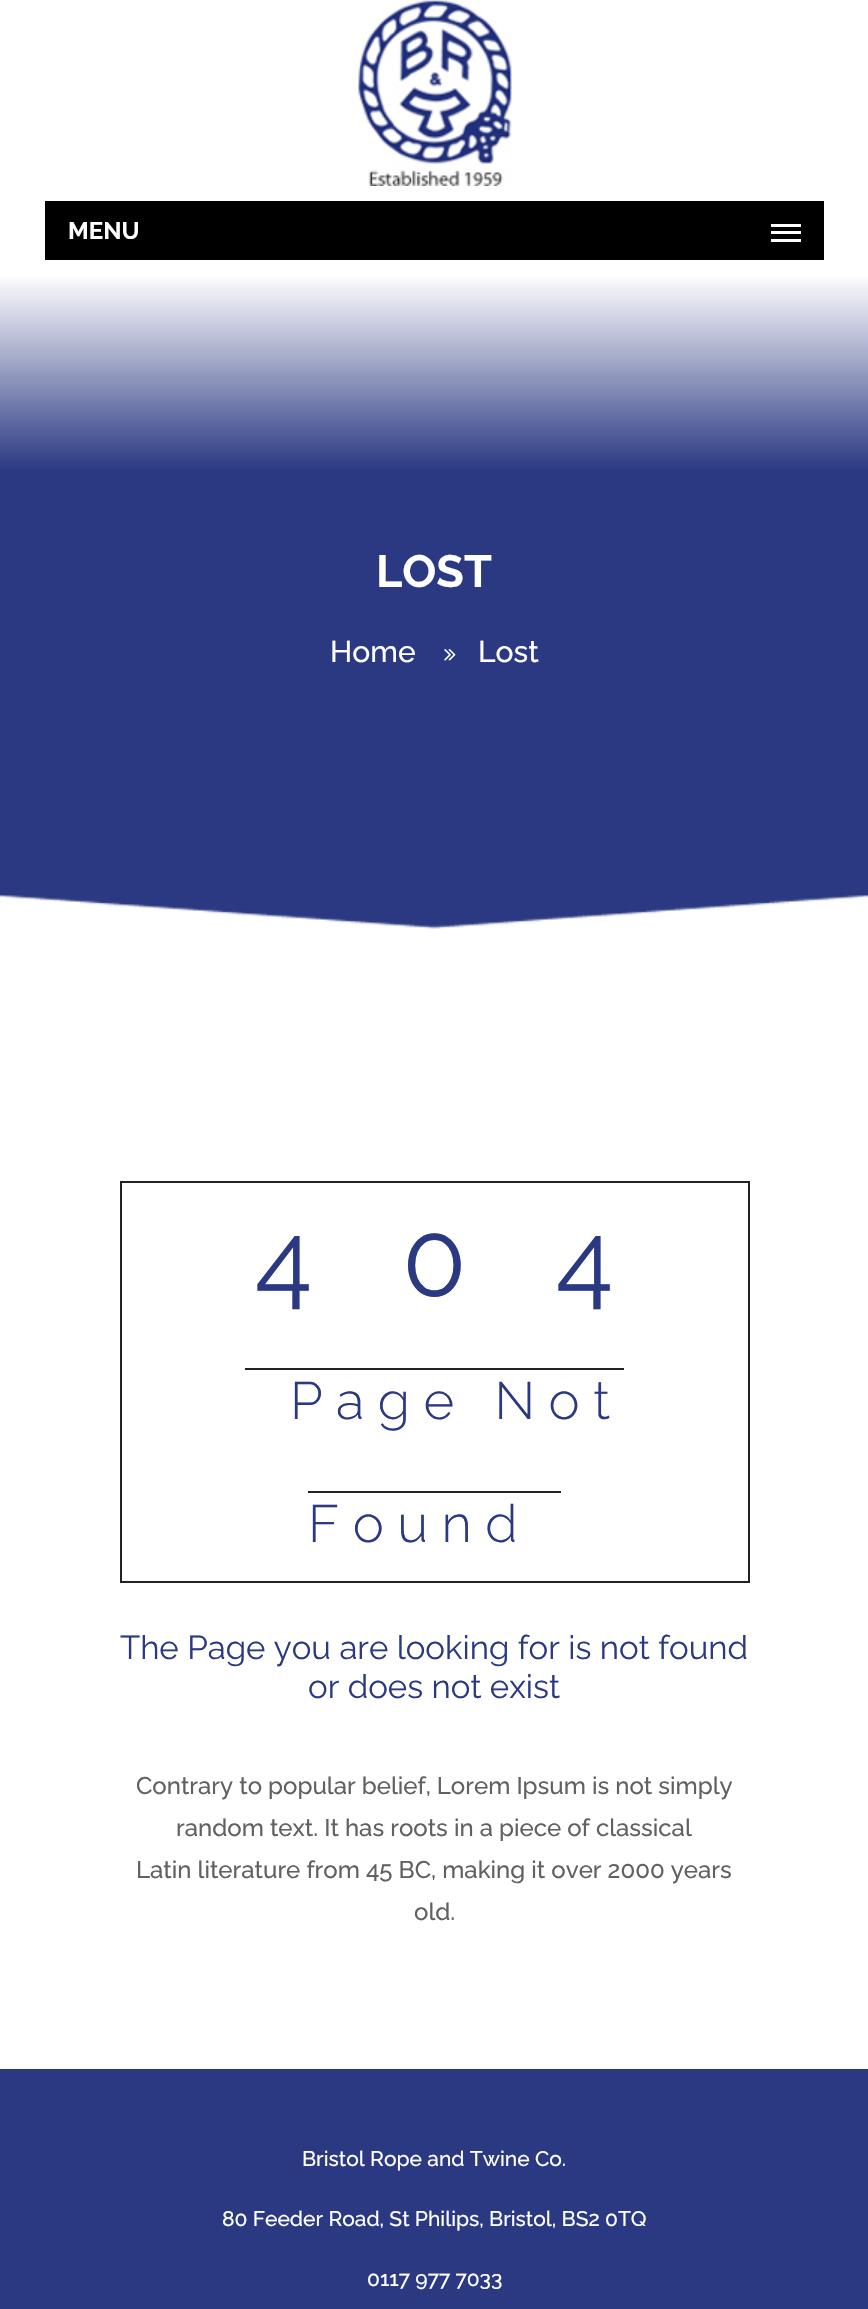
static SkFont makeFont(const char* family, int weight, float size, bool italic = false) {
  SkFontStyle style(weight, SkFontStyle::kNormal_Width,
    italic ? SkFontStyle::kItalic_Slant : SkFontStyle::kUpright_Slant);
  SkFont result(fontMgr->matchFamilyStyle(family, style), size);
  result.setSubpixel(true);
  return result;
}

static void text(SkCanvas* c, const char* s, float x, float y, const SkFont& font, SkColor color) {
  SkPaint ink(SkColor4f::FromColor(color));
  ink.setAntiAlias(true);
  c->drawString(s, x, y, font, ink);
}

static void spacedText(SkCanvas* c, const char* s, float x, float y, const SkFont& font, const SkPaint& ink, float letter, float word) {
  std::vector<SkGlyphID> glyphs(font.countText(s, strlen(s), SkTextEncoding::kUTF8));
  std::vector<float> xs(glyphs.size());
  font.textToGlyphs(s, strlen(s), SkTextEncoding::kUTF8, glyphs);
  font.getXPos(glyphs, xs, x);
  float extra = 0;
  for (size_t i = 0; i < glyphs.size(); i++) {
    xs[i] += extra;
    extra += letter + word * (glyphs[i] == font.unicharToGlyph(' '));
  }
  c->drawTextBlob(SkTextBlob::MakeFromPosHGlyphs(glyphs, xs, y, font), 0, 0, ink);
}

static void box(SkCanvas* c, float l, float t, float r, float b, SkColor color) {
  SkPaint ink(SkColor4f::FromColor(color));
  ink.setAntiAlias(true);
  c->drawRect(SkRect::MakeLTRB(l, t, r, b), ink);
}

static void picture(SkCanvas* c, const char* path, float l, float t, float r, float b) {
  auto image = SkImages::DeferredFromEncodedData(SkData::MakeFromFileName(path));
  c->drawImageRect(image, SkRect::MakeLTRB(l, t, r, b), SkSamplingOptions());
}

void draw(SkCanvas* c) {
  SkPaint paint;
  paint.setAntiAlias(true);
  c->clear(0xffffffff);
  picture(c, "img_01.png", 358, 0, 512, 186);
  box(c, 45, 201, 824, 260, 0xff000000);
  SkFont face1 = makeFont("Raleway", 700, 24);
  text(c, "MENU", 68, 239, face1, 0xffffffff);
  box(c, 771, 231, 801, 234, 0xffffffff);
  box(c, 771, 224, 801, 227, 0xffffffff);
  box(c, 771, 239, 801, 242, 0xffffffff);
  {
    const SkColor colors[] = {0xffffffff, 0xff2b3983};
    const float stops[] = {0, 1};
    const SkPoint ends[] = {{434, 274}, {434, 470}};
    paint.setShader(SkGradientShader::MakeLinear(ends, colors, stops, 2, SkTileMode::kClamp));
    paint.setAlpha(255);
  }
  c->drawRect(SkRect::MakeLTRB(0, 276, 868, 470), paint);
  box(c, 0, 470, 868, 929, 0xff2b3983);
  SkFont face2 = makeFont("Raleway", 700, 45);
  text(c, "LOST", 376, 587, face2, 0xffffffff);
  SkFont face3 = makeFont("Raleway", 500, 30);
  text(c, "Home", 330, 662, face3, 0xffffffff);
  picture(c, "img_02.png", 444, 649, 456, 661);
  text(c, "Lost", 478, 662, face3, 0xffffffff);
  picture(c, "img_03.png", 0, 894, 868, 941);
  paint.setStyle(SkPaint::kStroke_Style);
  paint.setStrokeWidth(2);
  paint.setShader(nullptr);
  paint.setColor(0xff222222);
  c->drawRect(SkRect::MakeLTRB(121, 1182, 749, 1582), paint);
  SkFont face4 = makeFont("Raleway", 400, 105);
  paint.setStyle(SkPaint::kFill_Style);
  paint.setColor(0xff2b3983);
  spacedText(c, "40", 255, 1296, face4, paint, 90, 0);
  text(c, "4", 556, 1296, face4, 0xff2b3983);
  SkFont face5 = makeFont("Raleway", 300, 52.5f);
  spacedText(c, "Page Not", 290, 1419, face5, paint, 13.5f, 0);
  box(c, 245, 1368, 624, 1370, 0xff222222);
  spacedText(c, "Found", 308, 1542, face5, paint, 13.5f, 0);
  box(c, 308, 1491, 561, 1493, 0xff222222);
  SkFont face6 = makeFont("Raleway", 400, 33);
  text(c, "The Page you are looking for is not found", 120, 1659, face6, 0xff2b3983);
  text(c, "or does not exist", 308, 1698, face6, 0xff2b3983);
  SkFont face7 = makeFont("Raleway", 500, 24);
  text(c, "Contrary to popular belief, Lorem Ipsum is not simply", 136, 1794, face7, 0xff616161);
  text(c, "random text. It has roots in a piece of classical", 176, 1836, face7, 0xff616161);
  text(c, "Latin literature from 45 BC, making it over 2000 years", 136, 1878, face7, 0xff616161);
  text(c, "old.", 414, 1920, face7, 0xff616161);
  box(c, 0, 2069, 868, 2309, 0xff2b3983);
  SkFont face8 = makeFont("Raleway", 500, 21);
  text(c, "Bristol Rope and Twine Co.", 302, 2166, face8, 0xffffffff);
  text(c, "80 Feeder Road, St Philips, Bristol, BS2 0TQ", 222, 2226, face8, 0xffffffff);
  text(c, "0117 977 7033", 367, 2286, face8, 0xffffffff);
}
